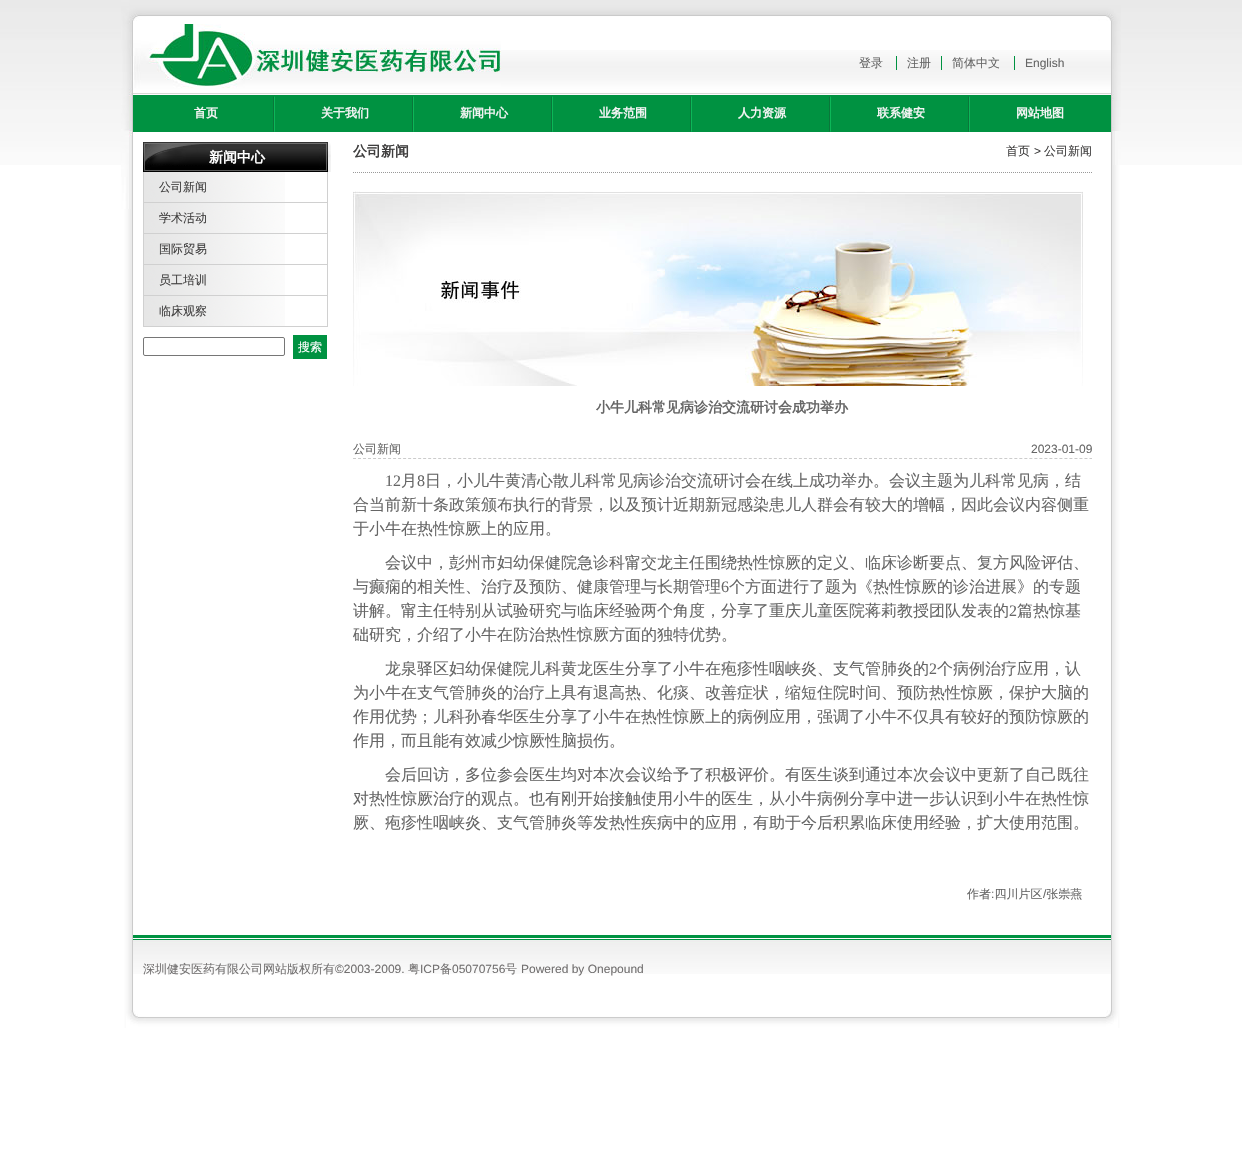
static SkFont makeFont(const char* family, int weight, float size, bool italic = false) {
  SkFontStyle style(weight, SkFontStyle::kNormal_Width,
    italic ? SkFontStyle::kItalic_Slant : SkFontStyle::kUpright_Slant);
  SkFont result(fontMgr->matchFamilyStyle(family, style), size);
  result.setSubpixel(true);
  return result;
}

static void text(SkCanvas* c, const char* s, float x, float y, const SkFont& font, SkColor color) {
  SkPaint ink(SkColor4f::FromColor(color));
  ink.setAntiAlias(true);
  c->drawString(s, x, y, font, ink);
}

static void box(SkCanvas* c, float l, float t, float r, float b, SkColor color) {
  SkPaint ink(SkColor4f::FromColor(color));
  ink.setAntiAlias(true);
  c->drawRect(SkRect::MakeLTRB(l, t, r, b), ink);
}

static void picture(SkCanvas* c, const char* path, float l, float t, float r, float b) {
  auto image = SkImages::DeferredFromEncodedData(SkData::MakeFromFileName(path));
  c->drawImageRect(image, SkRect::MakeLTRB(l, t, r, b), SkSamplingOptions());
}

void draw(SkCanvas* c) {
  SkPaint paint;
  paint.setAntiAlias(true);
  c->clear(0xffffffff);
  picture(c, "img_01.png", 0, 0, 1242, 165);
  picture(c, "img_02.png", 121, 21, 1121, 1028);
  picture(c, "img_03.png", 121, 0, 132, 209);
  picture(c, "img_04.png", 1112, 0, 1121, 165);
  picture(c, "img_05.png", 130, 0, 1112, 21);
  picture(c, "img_06.png", 133, 50, 1111, 132);
  picture(c, "img_07.png", 133, 24, 501, 88);
  SkFont face1 = makeFont("WenQuanYi Zen Hei", 500, 12);
  text(c, "登录", 859, 67, face1, 0xff666666);
  text(c, "注册", 907, 67, face1, 0xff666666);
  box(c, 896, 56, 897, 70, 0xff009241);
  text(c, "简体中文", 952, 67, face1, 0xff666666);
  box(c, 941, 56, 942, 70, 0xff009241);
  SkFont face2 = makeFont("Liberation Sans", 400, 12);
  text(c, "English", 1025, 67, face2, 0xff666666);
  box(c, 1014, 56, 1015, 70, 0xff009241);
  picture(c, "img_08.png", 273, 96, 275, 132);
  SkFont face3 = makeFont("WenQuanYi Zen Hei", 700, 12);
  text(c, "首页", 194, 117, face3, 0xfff4f4f4);
  picture(c, "img_08.png", 412, 96, 414, 132);
  text(c, "关于我们", 321, 117, face3, 0xfff4f4f4);
  picture(c, "img_08.png", 551, 96, 553, 132);
  text(c, "新闻中心", 460, 117, face3, 0xfff4f4f4);
  picture(c, "img_08.png", 690, 96, 692, 132);
  text(c, "业务范围", 599, 117, face3, 0xfff4f4f4);
  picture(c, "img_08.png", 829, 96, 831, 132);
  text(c, "人力资源", 738, 117, face3, 0xfff4f4f4);
  picture(c, "img_08.png", 968, 96, 970, 132);
  text(c, "联系健安", 877, 117, face3, 0xfff4f4f4);
  text(c, "网站地图", 1016, 117, face3, 0xfff4f4f4);
  picture(c, "img_09.png", 143, 142, 331, 172);
  SkFont face4 = makeFont("WenQuanYi Zen Hei", 700, 14);
  text(c, "新闻中心", 209, 162, face4, 0xffffffff);
  box(c, 327, 172, 328, 327, 0xffd0d0d0);
  box(c, 143, 172, 144, 327, 0xffd0d0d0);
  picture(c, "img_10.png", 144, 172, 285, 202);
  box(c, 144, 202, 327, 203, 0xffd0d0d0);
  text(c, "公司新闻", 159, 191, face1, 0xff403f3f);
  picture(c, "img_10.png", 144, 203, 285, 233);
  box(c, 144, 233, 327, 234, 0xffd0d0d0);
  text(c, "学术活动", 159, 222, face1, 0xff403f3f);
  picture(c, "img_10.png", 144, 234, 285, 264);
  box(c, 144, 264, 327, 265, 0xffd0d0d0);
  text(c, "国际贸易", 159, 253, face1, 0xff403f3f);
  picture(c, "img_10.png", 144, 265, 285, 295);
  box(c, 144, 295, 327, 296, 0xffd0d0d0);
  text(c, "员工培训", 159, 284, face1, 0xff403f3f);
  picture(c, "img_10.png", 144, 296, 285, 326);
  box(c, 144, 326, 327, 327, 0xffd0d0d0);
  text(c, "临床观察", 159, 315, face1, 0xff403f3f);
  paint.setStyle(SkPaint::kStroke_Style);
  paint.setStrokeWidth(1);
  paint.setColor(0xff767676);
  c->drawRoundRect(SkRect::MakeLTRB(143.5f, 337.5f, 284.5f, 355.5f), 1.5f, 1.5f, paint);
  box(c, 293, 335, 327, 359, 0xff009241);
  text(c, "搜索", 298, 351, face1, 0xffffffff);
  paint.setColor(0xff999999);
  paint.setPathEffect(SkDashPathEffect::Make({{1, 1}}, 0));
  c->drawPath(SkPathBuilder().moveTo(353, 172.5f).lineTo(1092, 172.5f).detach(), paint);
  paint.setPathEffect(nullptr);
  text(c, "公司新闻", 353, 156, face4, 0xff403f3f);
  text(c, "首页", 1006, 155, face1, 0xff403f3f);
  text(c, ">", 1034, 155, face2, 0xff403f3f);
  text(c, "公司新闻", 1044, 155, face1, 0xff403f3f);
  picture(c, "img_11.png", 353, 191, 1083, 386);
  text(c, "小牛儿科常见病诊治交流研讨会成功举办", 596, 412, face4, 0xff666666);
  paint.setColor(0xffcccccc);
  paint.setPathEffect(SkDashPathEffect::Make({{3, 2.01f}}, 0));
  c->drawPath(SkPathBuilder().moveTo(353, 458.5f).lineTo(1092, 458.5f).detach(), paint);
  paint.setPathEffect(nullptr);
  text(c, "公司新闻", 353, 453, face1, 0xff666666);
  text(c, "2023-01-09", 1031, 453, face2, 0xff666666);
  SkFont face5 = makeFont("Liberation Serif", 400, 16);
  text(c, "12", 385, 486, face5, 0xff666666);
  SkFont face6 = makeFont("WenQuanYi Zen Hei", 500, 16);
  text(c, "月", 401, 486, face6, 0xff666666);
  text(c, "8", 417, 486, face5, 0xff666666);
  text(c, "日，小儿牛黄清心散儿科常见病诊治交流研讨会在线上成功举办。会议主题为儿科常见病，结", 425, 486, face6, 0xff666666);
  text(c, "合当前新十条政策颁布执行的背景，以及预计近期新冠感染患儿人群会有较大的增幅，因此会议内容侧重", 353, 510, face6, 0xff666666);
  text(c, "于小牛在热性惊厥上的应用。", 353, 534, face6, 0xff666666);
  text(c, "会议中，彭州市妇幼保健院急诊科甯交龙主任围绕热性惊厥的定义、临床诊断要点、复方风险评估、", 385, 568, face6, 0xff666666);
  text(c, "与癫痫的相关性、治疗及预防、健康管理与长期管理", 353, 592, face6, 0xff666666);
  text(c, "6", 721, 592, face5, 0xff666666);
  text(c, "个方面进行了题为《热性惊厥的诊治进展》的专题", 729, 592, face6, 0xff666666);
  text(c, "讲解。甯主任特别从试验研究与临床经验两个角度，分享了重庆儿童医院蒋莉教授团队发表的", 353, 616, face6, 0xff666666);
  text(c, "2", 1009, 616, face5, 0xff666666);
  text(c, "篇热惊基", 1017, 616, face6, 0xff666666);
  text(c, "础研究，介绍了小牛在防治热性惊厥方面的独特优势。", 353, 640, face6, 0xff666666);
  text(c, "龙泉驿区妇幼保健院儿科黄龙医生分享了小牛在疱疹性咽峡炎、支气管肺炎的", 385, 674, face6, 0xff666666);
  text(c, "2", 929, 674, face5, 0xff666666);
  text(c, "个病例治疗应用，认", 937, 674, face6, 0xff666666);
  text(c, "为小牛在支气管肺炎的治疗上具有退高热、化痰、改善症状，缩短住院时间、预防热性惊厥，保护大脑的", 353, 698, face6, 0xff666666);
  text(c, "作用优势；儿科孙春华医生分享了小牛在热性惊厥上的病例应用，强调了小牛不仅具有较好的预防惊厥的", 353, 722, face6, 0xff666666);
  text(c, "作用，而且能有效减少惊厥性脑损伤。", 353, 746, face6, 0xff666666);
  text(c, "会后回访，多位参会医生均对本次会议给予了积极评价。有医生谈到通过本次会议中更新了自己既往", 385, 780, face6, 0xff666666);
  text(c, "对热性惊厥治疗的观点。也有刚开始接触使用小牛的医生，从小牛病例分享中进一步认识到小牛在热性惊", 353, 804, face6, 0xff666666);
  text(c, "厥、疱疹性咽峡炎、支气管肺炎等发热性疾病中的应用，有助于今后积累临床使用经验，扩大使用范围。", 353, 828, face6, 0xff666666);
  text(c, "作者 四川片区 张崇燕", 967, 898, face1, 0xff666666);
  text(c, ":", 991, 898, face2, 0xff666666);
  text(c, "/", 1043, 898, face2, 0xff666666);
  picture(c, "img_12.png", 126, 1010, 1118, 1028);
  picture(c, "img_13.png", 133, 935, 1111, 974);
  text(c, "深圳健安医药有限公司网站版权所有", 143, 973, face1, 0xff727070);
  text(c, "©2003-2009.", 335, 973, face2, 0xff727070);
  text(c, "粤", 408, 973, face1, 0xff727070);
  text(c, "ICP", 420, 973, face2, 0xff727070);
  text(c, "备", 440, 973, face1, 0xff727070);
  text(c, "05070756", 452, 973, face2, 0xff727070);
  text(c, "号", 505, 973, face1, 0xff727070);
  text(c, "Powered by Onepound", 521, 973, face2, 0xff727070);
}
